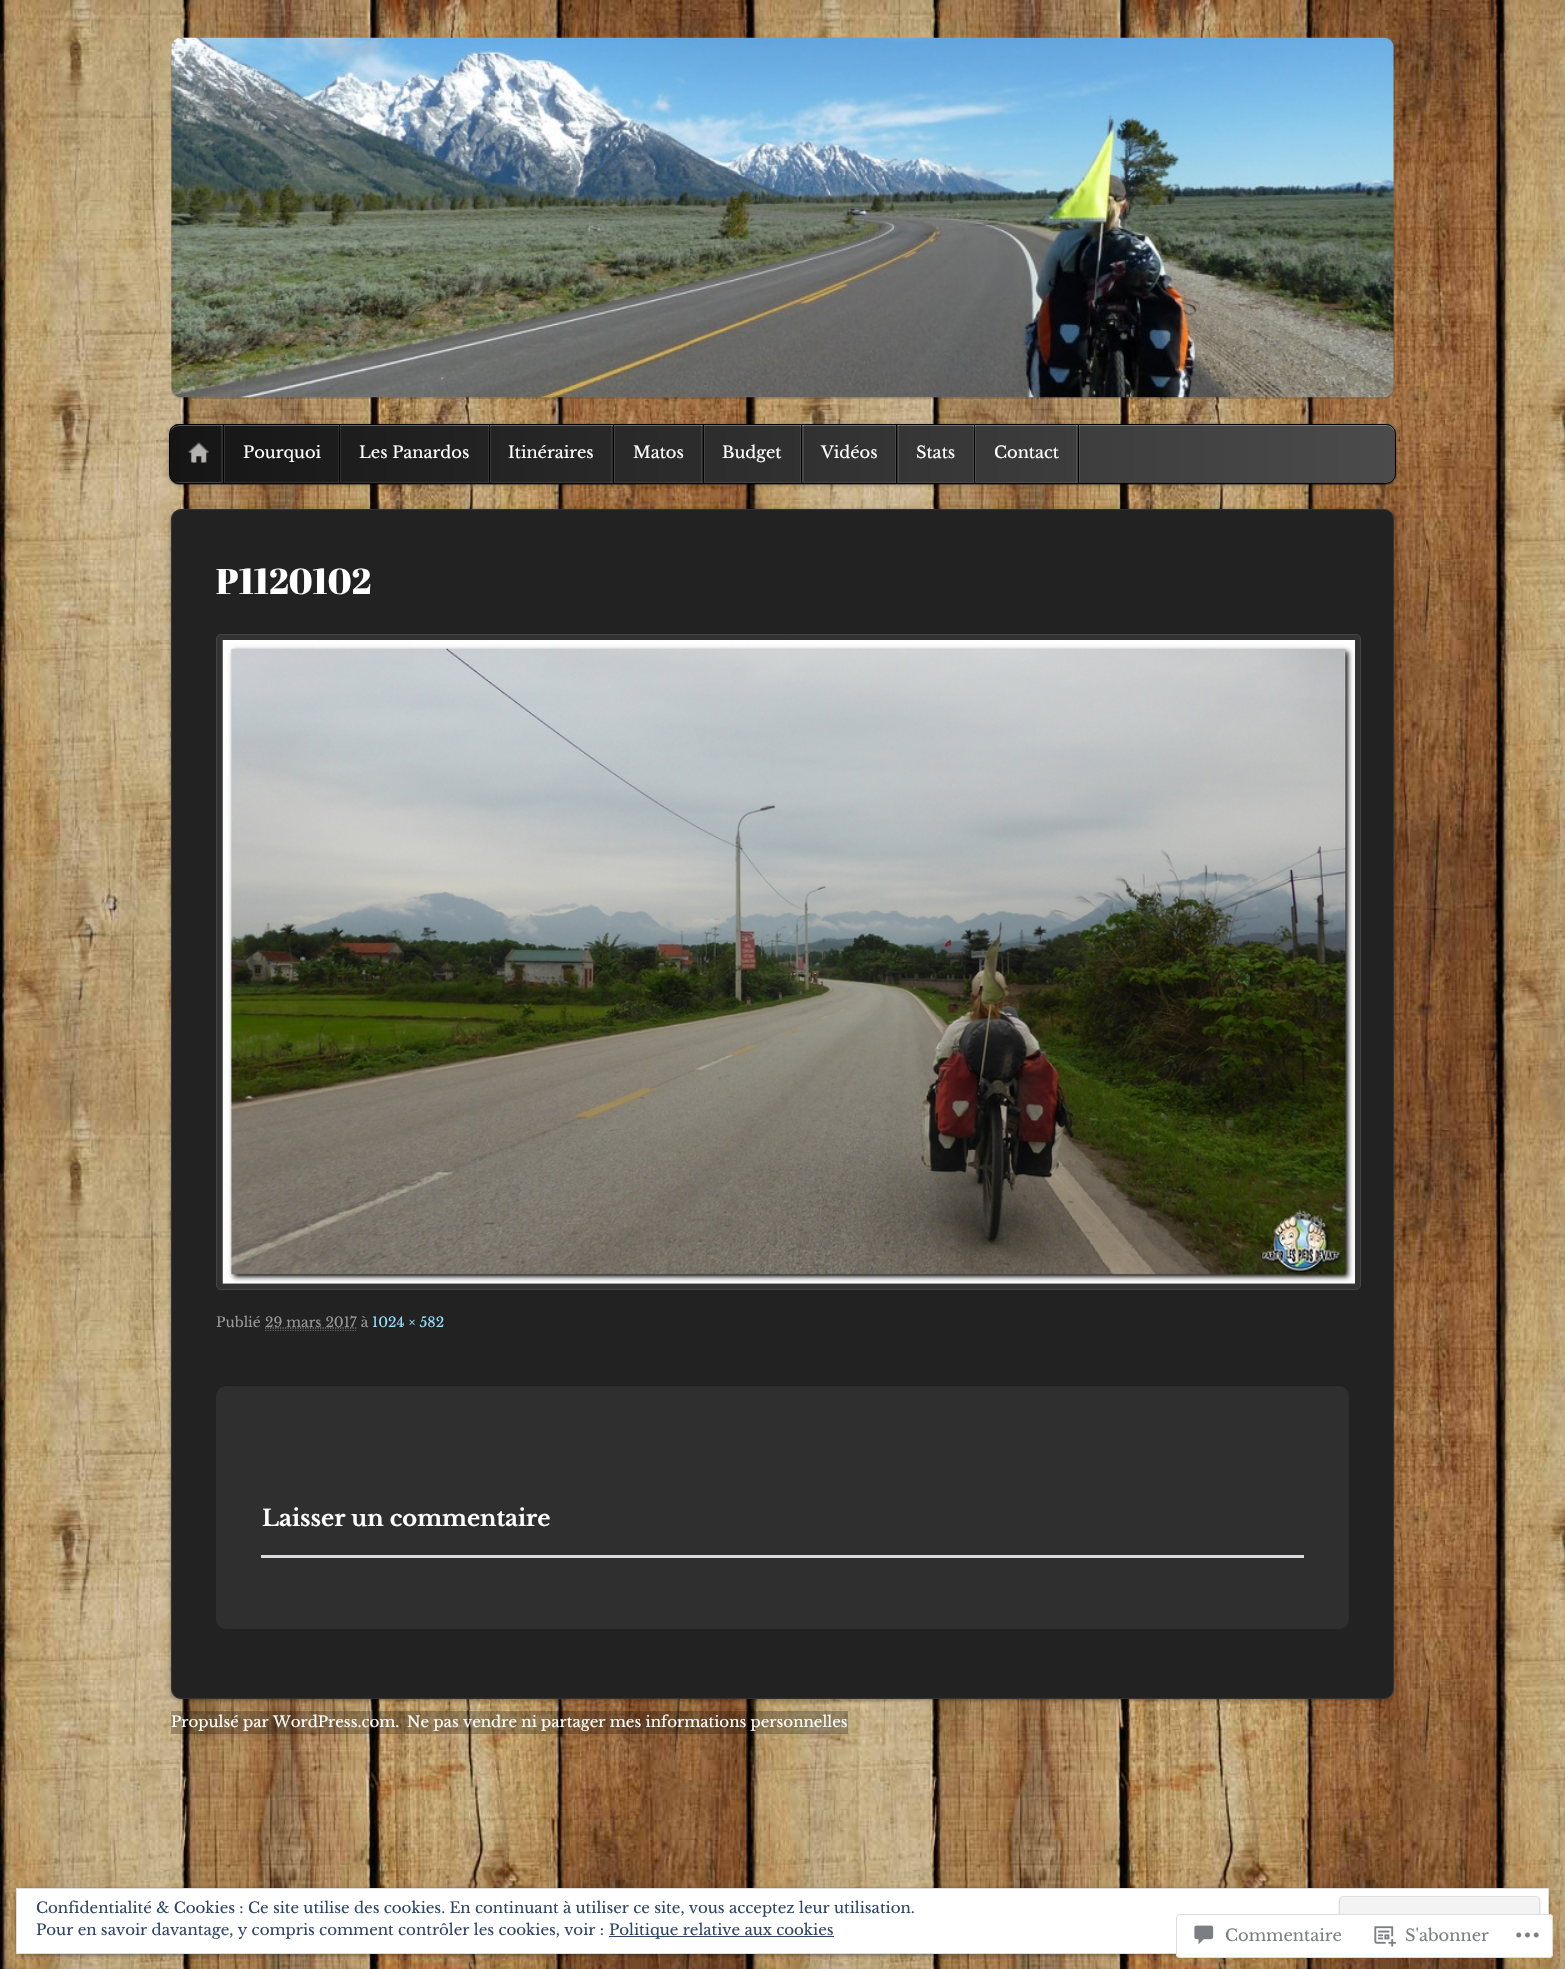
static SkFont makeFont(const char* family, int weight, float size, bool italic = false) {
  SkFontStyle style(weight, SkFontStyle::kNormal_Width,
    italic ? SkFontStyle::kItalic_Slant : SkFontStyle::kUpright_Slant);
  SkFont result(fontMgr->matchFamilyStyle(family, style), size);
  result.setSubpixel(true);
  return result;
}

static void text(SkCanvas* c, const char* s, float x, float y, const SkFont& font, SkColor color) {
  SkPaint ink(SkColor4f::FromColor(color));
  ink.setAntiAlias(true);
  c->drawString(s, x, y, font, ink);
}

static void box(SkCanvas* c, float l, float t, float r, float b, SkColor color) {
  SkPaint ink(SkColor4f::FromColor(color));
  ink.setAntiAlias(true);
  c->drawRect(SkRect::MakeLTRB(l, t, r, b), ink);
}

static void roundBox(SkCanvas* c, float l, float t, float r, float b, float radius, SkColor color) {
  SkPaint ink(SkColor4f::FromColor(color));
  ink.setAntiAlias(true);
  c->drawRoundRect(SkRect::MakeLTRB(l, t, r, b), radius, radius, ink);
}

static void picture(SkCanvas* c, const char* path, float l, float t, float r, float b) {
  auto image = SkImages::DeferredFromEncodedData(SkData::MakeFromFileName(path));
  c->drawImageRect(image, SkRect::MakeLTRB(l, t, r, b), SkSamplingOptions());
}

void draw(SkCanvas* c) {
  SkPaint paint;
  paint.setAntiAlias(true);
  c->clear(0xffffffff);
  picture(c, "img_01.png", 0, 0, 1565, 1969);
  paint.setColor(0x26000000);
  paint.setMaskFilter(SkMaskFilter::MakeBlur(kNormal_SkBlurStyle, 0.5f));
  c->drawRoundRect(SkRect::MakeLTRB(171, 39, 1394, 399), 10, 10, paint);
  paint.setMaskFilter(nullptr);
  picture(c, "img_02.png", 171, 37, 1394, 398);
  paint.setColor(0x4d000000);
  paint.setMaskFilter(SkMaskFilter::MakeBlur(kNormal_SkBlurStyle, 2));
  c->drawRoundRect(SkRect::MakeLTRB(169, 425, 1396, 485), 10, 10, paint);
  paint.setMaskFilter(nullptr);
  c->drawPath(SkPathBuilder().moveTo(169, 476).cubicTo(170, 481, 174, 485, 179, 485).lineTo(1386, 485).cubicTo(1391, 485, 1395, 481, 1396, 476).cubicTo(1395, 481, 1391, 484, 1386, 484).lineTo(179, 484).cubicTo(174, 484, 170, 481, 169, 476).close().detach(), paint);
  c->save();
  c->clipPath(SkPathBuilder().moveTo(179, 424).lineTo(1386, 424).cubicTo(1391.5f, 424, 1396, 428.5f, 1396, 434).lineTo(1396, 474).cubicTo(1396, 479.5f, 1391.5f, 484, 1386, 484).lineTo(179, 484).cubicTo(173.5f, 484, 169, 479.5f, 169, 474).lineTo(169, 434).cubicTo(169, 428.5f, 173.5f, 424, 179, 424).close().detach(), true);
  {
    const SkColor colors[] = {0xff4b4b4b, 0xff151515};
    const float stops[] = {0, 1};
    const SkPoint ends[] = {{1395, 454}, {170, 454}};
    paint.setShader(SkGradientShader::MakeLinear(ends, colors, stops, 2, SkTileMode::kClamp));
    paint.setAlpha(255);
  }
  c->drawRect(SkRect::MakeLTRB(170, 424, 1395, 484), paint);
  c->restore();
  paint.setShader(nullptr);
  paint.setColor(0x4dffffff);
  c->drawPath(SkPathBuilder().moveTo(179, 426).lineTo(1386, 426).cubicTo(1391, 426, 1395, 430, 1395, 435).lineTo(1395, 434).cubicTo(1395, 429, 1391, 425, 1386, 425).lineTo(179, 425).cubicTo(174, 425, 170, 429, 170, 434).lineTo(170, 435).cubicTo(170, 430, 174, 426, 179, 426).close().detach(), paint);
  paint.setStyle(SkPaint::kStroke_Style);
  paint.setStrokeWidth(1);
  paint.setColor(0xff000000);
  c->drawRoundRect(SkRect::MakeLTRB(169.5f, 424.5f, 1395.5f, 483.5f), 9.5f, 9.5f, paint);
  paint.setStyle(SkPaint::kFill_Style);
  paint.setColor(0x1affffff);
  c->drawPath(SkPathBuilder().moveTo(176, 482).lineTo(179, 483).lineTo(225, 483).lineTo(225, 425).lineTo(224, 425).lineTo(224, 482).close().detach(), paint);
  c->drawPath(SkPathBuilder().moveTo(173, 482).cubicTo(175, 482, 176, 483, 178, 483).lineTo(223, 483).lineTo(223, 425).lineTo(221, 425).lineTo(221, 482).lineTo(176, 482).close().detach(), paint);
  box(c, 223, 425, 224, 483, 0xff000000);
  picture(c, "img_03.png", 187, 442, 209, 463);
  c->drawPath(SkPathBuilder().moveTo(225, 482).lineTo(225, 483).lineTo(341, 483).lineTo(341, 425).lineTo(340, 425).lineTo(340, 482).close().detach(), paint);
  box(c, 338, 425, 339, 483, 0x1affffff);
  box(c, 339, 425, 340, 483, 0xff000000);
  SkFont face1 = makeFont("Libre Baskerville", 400, 16.25f);
  text(c, "Pourquoi", 243, 458, face1, 0xffffffff);
  c->drawPath(SkPathBuilder().moveTo(341, 482).lineTo(341, 483).lineTo(491, 483).lineTo(491, 425).lineTo(490, 425).lineTo(490, 482).close().detach(), paint);
  box(c, 488, 425, 489, 483, 0x1affffff);
  box(c, 489, 425, 490, 483, 0xff000000);
  text(c, "Les Panardos", 359, 458, face1, 0xffffffff);
  c->drawPath(SkPathBuilder().moveTo(491, 482).lineTo(491, 483).lineTo(615, 483).lineTo(615, 425).lineTo(614, 425).lineTo(614, 482).close().detach(), paint);
  box(c, 611, 425, 612, 483, 0x1affffff);
  box(c, 613, 425, 614, 483, 0xff000000);
  text(c, "Itinéraires", 508, 458, face1, 0xffffffff);
  c->drawPath(SkPathBuilder().moveTo(615, 482).lineTo(615, 483).lineTo(705, 483).lineTo(705, 425).lineTo(704, 425).lineTo(704, 482).close().detach(), paint);
  box(c, 701, 425, 702, 483, 0x1affffff);
  box(c, 703, 425, 704, 483, 0xff000000);
  text(c, "Matos", 633, 458, face1, 0xffffffff);
  c->drawPath(SkPathBuilder().moveTo(705, 482).lineTo(705, 483).lineTo(804, 483).lineTo(804, 425).lineTo(802, 425).lineTo(802, 482).close().detach(), paint);
  box(c, 800, 425, 801, 483, 0x1affffff);
  box(c, 801, 425, 802, 483, 0xff000000);
  text(c, "Budget", 722, 458, face1, 0xffffffff);
  c->drawPath(SkPathBuilder().moveTo(804, 482).lineTo(804, 483).lineTo(899, 483).lineTo(899, 425).lineTo(898, 425).lineTo(898, 482).close().detach(), paint);
  box(c, 895, 425, 896, 483, 0x1affffff);
  box(c, 896, 425, 897, 483, 0xff000000);
  text(c, "Vidéos", 821, 458, face1, 0xffffffff);
  c->drawPath(SkPathBuilder().moveTo(899, 482).lineTo(899, 483).lineTo(976, 483).lineTo(976, 425).lineTo(975, 425).lineTo(975, 482).close().detach(), paint);
  box(c, 973, 425, 974, 483, 0x1affffff);
  box(c, 974, 425, 975, 483, 0xff000000);
  text(c, "Stats", 916, 458, face1, 0xffffffff);
  c->drawPath(SkPathBuilder().moveTo(976, 482).lineTo(976, 483).lineTo(1080, 483).lineTo(1080, 425).lineTo(1079, 425).lineTo(1079, 482).close().detach(), paint);
  box(c, 1076, 425, 1077, 483, 0x1affffff);
  box(c, 1078, 425, 1079, 483, 0xff000000);
  text(c, "Contact", 994, 458, face1, 0xffffffff);
  paint.setColor(0x66000000);
  paint.setMaskFilter(SkMaskFilter::MakeBlur(kNormal_SkBlurStyle, 2));
  c->drawRoundRect(SkRect::MakeLTRB(171, 510, 1394, 1700), 10, 10, paint);
  paint.setMaskFilter(nullptr);
  paint.setColor(0xff222222);
  c->drawRoundRect(SkRect::MakeLTRB(171.5f, 509.5f, 1393.5f, 1698.5f), 9.5f, 9.5f, paint);
  paint.setStyle(SkPaint::kStroke_Style);
  paint.setColor(0xff323232);
  c->drawRoundRect(SkRect::MakeLTRB(171.5f, 509.5f, 1393.5f, 1698.5f), 9.5f, 9.5f, paint);
  SkFont face2 = makeFont("Abril Fatface", 400, 35.75f);
  text(c, "P1120102", 216, 594, face2, 0xffffffff);
  paint.setStyle(SkPaint::kFill_Style);
  paint.setColor(0xff333333);
  c->drawRoundRect(SkRect::MakeLTRB(216.5f, 634.5f, 1360.5f, 1289.5f), 4.5f, 4.5f, paint);
  paint.setStyle(SkPaint::kStroke_Style);
  paint.setColor(0xff444444);
  c->drawRoundRect(SkRect::MakeLTRB(216.5f, 634.5f, 1360.5f, 1289.5f), 4.5f, 4.5f, paint);
  picture(c, "img_04.png", 222, 640, 1355, 1284);
  SkFont face3 = makeFont("Libre Baskerville", 400, 13.75f);
  text(c, "Publié", 216, 1327, face3, 0xff999999);
  paint.setStrokeWidth(1.2f);
  paint.setColor(0xff999999);
  paint.setPathEffect(SkDashPathEffect::Make({{1.25f, 1.25f}}, 0));
  c->drawPath(SkPathBuilder().moveTo(265, 1328).lineTo(356.5f, 1328).detach(), paint);
  paint.setPathEffect(nullptr);
  text(c, "29 mars 2017 à", 265, 1327, face3, 0xff999999);
  paint.setColor(0xff666666);
  paint.setPathEffect(SkDashPathEffect::Make({{1.25f, 1.25f}}, 0));
  c->drawPath(SkPathBuilder().moveTo(265, 1330.5f).lineTo(356, 1330.5f).detach(), paint);
  paint.setPathEffect(nullptr);
  text(c, "1024 × 582", 372, 1327, face3, 0xff97dffc);
  paint.setStyle(SkPaint::kFill_Style);
  paint.setColor(0xff1f1f1f);
  c->drawPath(SkPathBuilder().moveTo(226, 1385).cubicTo(221, 1385, 216, 1390, 216, 1395).lineTo(216, 1618).lineTo(217, 1622).lineTo(216, 1619).lineTo(216, 1396).cubicTo(216, 1391, 221, 1386, 226, 1386).lineTo(1339, 1386).cubicTo(1344, 1386, 1349, 1391, 1349, 1396).lineTo(1349, 1619).lineTo(1348, 1622).lineTo(1349, 1618).lineTo(1349, 1395).cubicTo(1349, 1390, 1344, 1385, 1339, 1385).close().detach(), paint);
  roundBox(c, 216, 1386, 1349, 1629, 10, 0xff2f2f2f);
  SkFont face4 = makeFont("Libre Baskerville", 700, 22.5f);
  text(c, "Laisser un commentaire", 262, 1526, face4, 0xffffffff);
  box(c, 261, 1555, 1304, 1558, 0xffdcdcde);
  box(c, 171, 1711, 848, 1734, 0x40000000);
  SkFont face5 = makeFont("Libre Baskerville", 400, 15);
  text(c, "Propulsé par WordPress.com.", 171, 1727, face5, 0xffffffff);
  text(c, "Ne pas vendre ni partager mes informations personnelles", 407, 1727, face5, 0xffffffff);
  paint.setColor(0x66000000);
  paint.setMaskFilter(SkMaskFilter::MakeBlur(kNormal_SkBlurStyle, 2));
  c->drawRoundRect(SkRect::MakeLTRB(16, 1889, 1549, 1955), 10, 10, paint);
  paint.setMaskFilter(nullptr);
  paint.setColor(0xffffffff);
  c->drawRect(SkRect::MakeLTRB(16.5f, 1888.5f, 1548.5f, 1953.5f), paint);
  paint.setStyle(SkPaint::kStroke_Style);
  paint.setStrokeWidth(1);
  paint.setColor(0xffdedede);
  c->drawRect(SkRect::MakeLTRB(16.5f, 1888.5f, 1548.5f, 1953.5f), paint);
  text(c, "Confidentialité & Cookies : Ce site utilise des cookies. En continuant à utiliser ce site, vous acceptez leur utilisation.", 36, 1913, face5, 0xff2e4467);
  paint.setStyle(SkPaint::kFill_Style);
  paint.setColor(0x33000000);
  paint.setMaskFilter(SkMaskFilter::MakeBlur(kNormal_SkBlurStyle, 1));
  c->drawRoundRect(SkRect::MakeLTRB(1339, 1898, 1540, 1946), 4, 4, paint);
  paint.setMaskFilter(nullptr);
  paint.setColor(0xfff3f3f3);
  c->drawRoundRect(SkRect::MakeLTRB(1339.5f, 1896.5f, 1539.5f, 1944.5f), 3.5f, 3.5f, paint);
  paint.setStyle(SkPaint::kStroke_Style);
  paint.setColor(0xffdedede);
  c->drawRoundRect(SkRect::MakeLTRB(1339.5f, 1896.5f, 1539.5f, 1944.5f), 3.5f, 3.5f, paint);
  text(c, "Pour en savoir davantage, y compris comment contrôler les cookies, voir :", 36, 1935, face5, 0xff2e4467);
  box(c, 609, 1936, 834, 1937, 0xff2e4467);
  text(c, "Politique relative aux cookies", 609, 1935, face5, 0xff2e4467);
  roundBox(c, 1176, 1914, 1553, 1958, 4, 0xfaffffff);
  paint.setColor(0xfadcdcde);
  c->drawRoundRect(SkRect::MakeLTRB(1176.5f, 1914.5f, 1552.5f, 1957.5f), 3.5f, 3.5f, paint);
  picture(c, "img_05.png", 1194, 1925, 1214, 1945);
  text(c, "Commentaire", 1225, 1941, face1, 0xff7b7f84);
  picture(c, "img_06.png", 1374, 1926, 1396, 1947);
  text(c, "S'abonner", 1405, 1941, face1, 0xff7b7f84);
  picture(c, "img_07.png", 1516, 1932, 1539, 1938);
}
